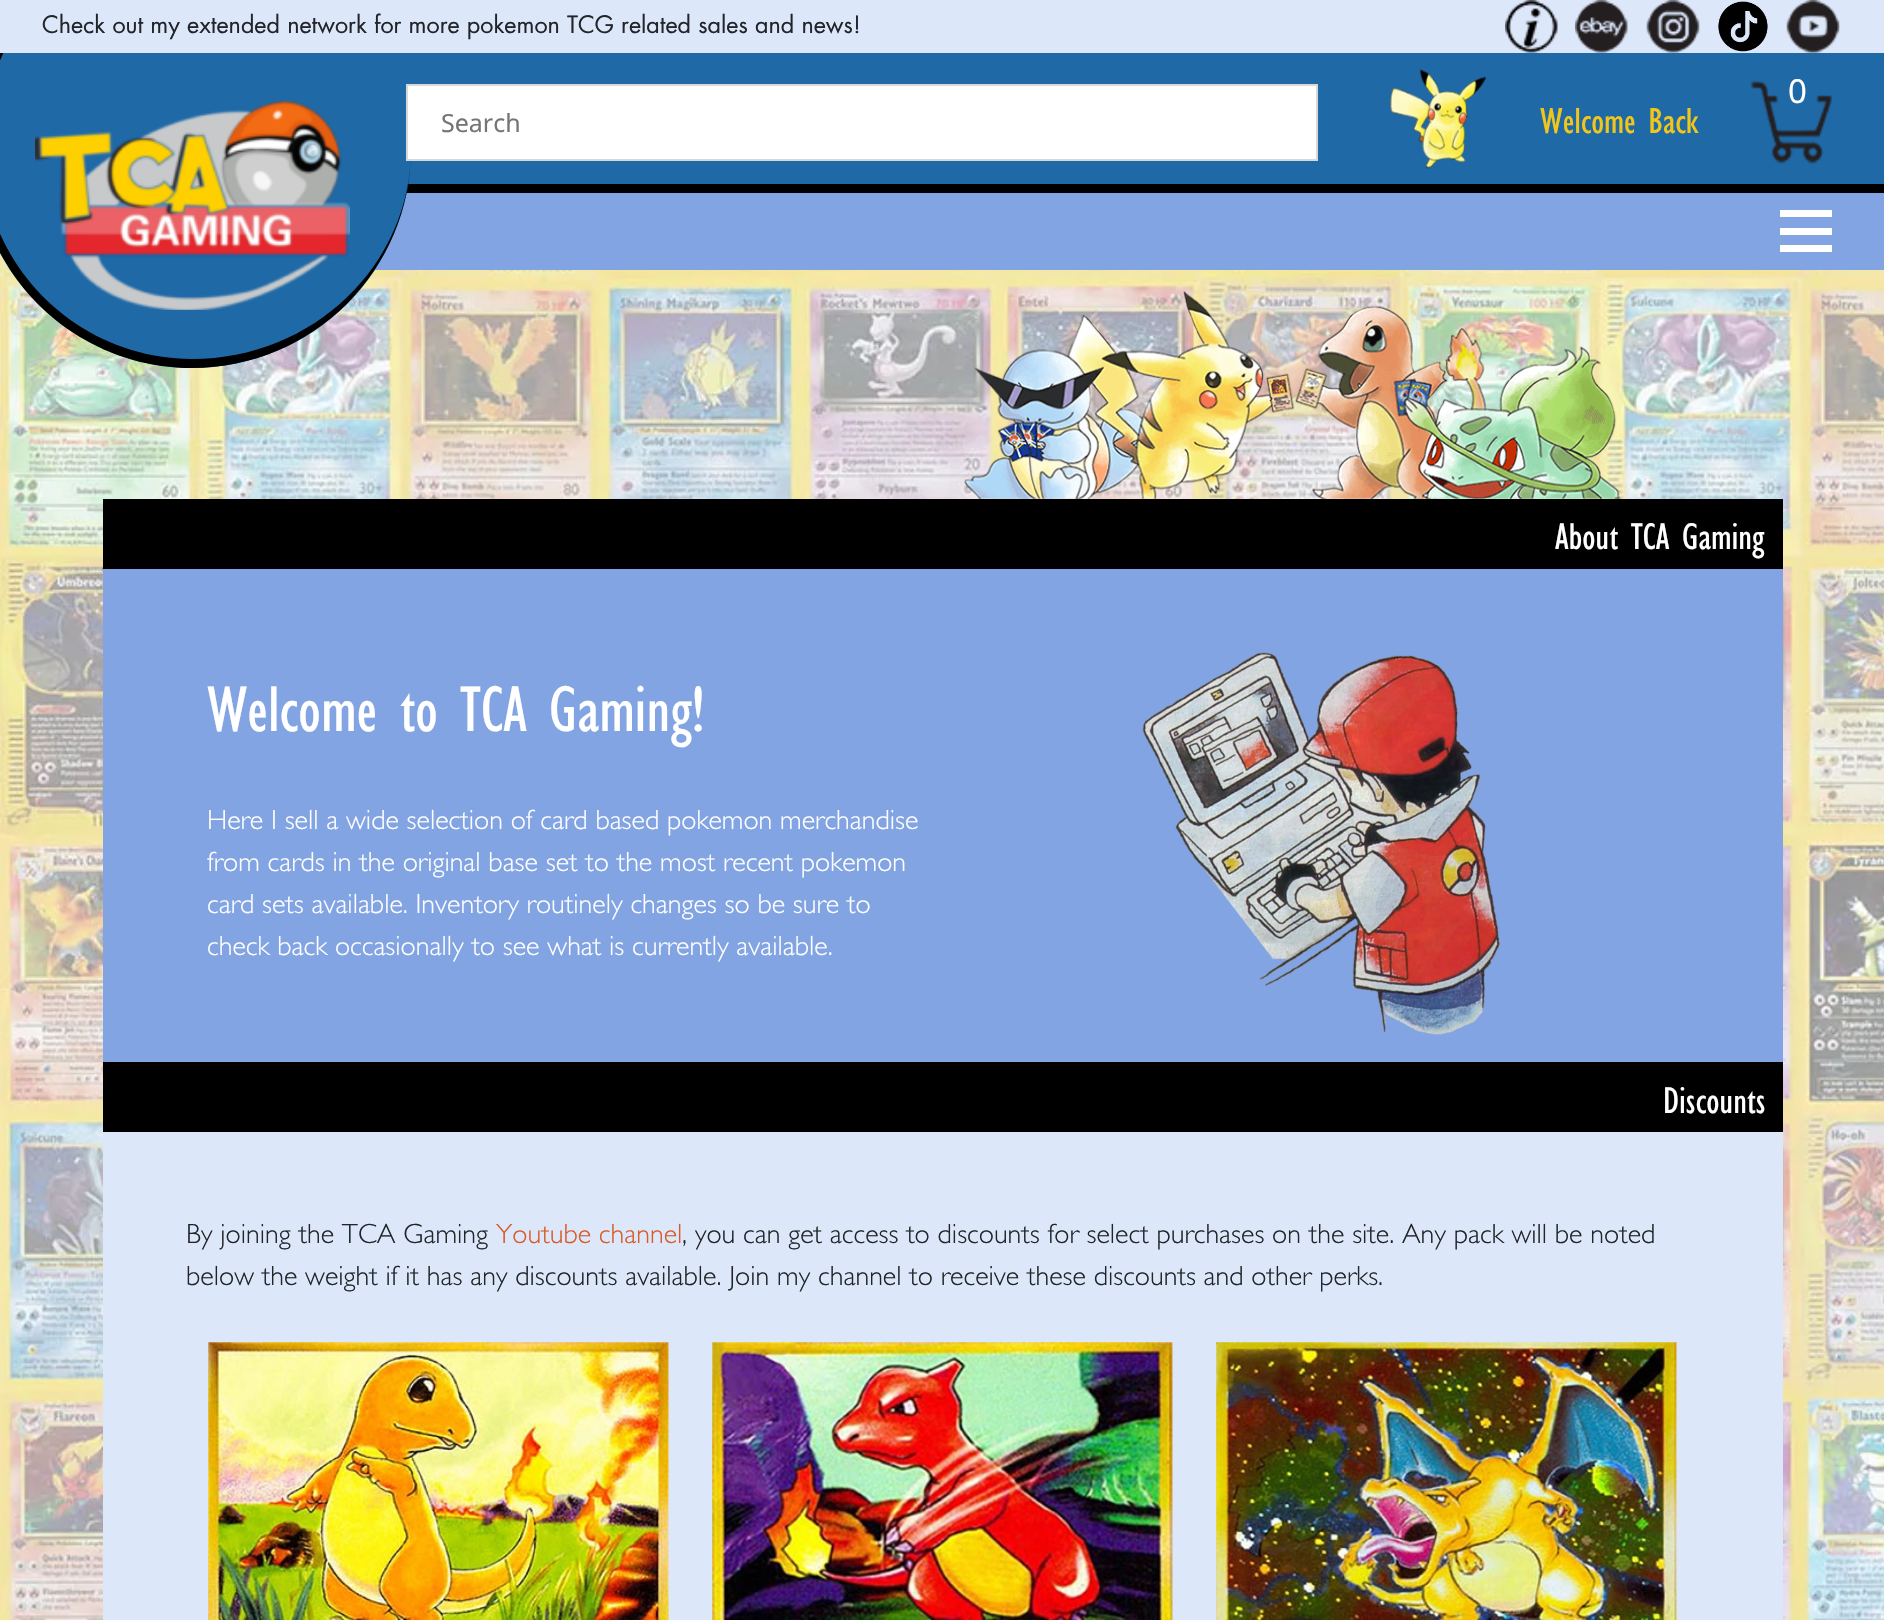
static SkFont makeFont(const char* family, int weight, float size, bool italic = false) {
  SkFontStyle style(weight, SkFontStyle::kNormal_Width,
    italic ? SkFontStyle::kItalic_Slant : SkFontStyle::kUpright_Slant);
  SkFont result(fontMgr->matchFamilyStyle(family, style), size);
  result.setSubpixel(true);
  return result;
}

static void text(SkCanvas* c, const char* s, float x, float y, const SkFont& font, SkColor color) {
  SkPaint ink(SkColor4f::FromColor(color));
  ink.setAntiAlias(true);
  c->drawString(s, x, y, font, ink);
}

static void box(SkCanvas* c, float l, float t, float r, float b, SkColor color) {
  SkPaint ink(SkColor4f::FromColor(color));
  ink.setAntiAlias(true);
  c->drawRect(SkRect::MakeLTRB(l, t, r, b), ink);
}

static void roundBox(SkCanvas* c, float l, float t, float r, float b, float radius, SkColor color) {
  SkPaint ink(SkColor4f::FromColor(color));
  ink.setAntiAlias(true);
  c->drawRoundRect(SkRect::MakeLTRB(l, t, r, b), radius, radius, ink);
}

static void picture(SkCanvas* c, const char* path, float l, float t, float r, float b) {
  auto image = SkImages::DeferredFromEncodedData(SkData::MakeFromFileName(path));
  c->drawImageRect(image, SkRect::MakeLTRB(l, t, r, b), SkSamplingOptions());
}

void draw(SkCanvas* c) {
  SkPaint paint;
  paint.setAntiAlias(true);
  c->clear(0xffffffff);
  picture(c, "img_01.png", 0, 253, 1884, 1620);
  box(c, 389, 53, 1884, 184, 0xff1f69a7);
  box(c, 406, 184, 1884, 193, 0xff000000);
  box(c, 374, 193, 1884, 270, 0xff82a4e3);
  roundBox(c, -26, -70, 411, 368, 218.5f, 0xff1f69a7);
  paint.setColor(0xff000000);
  c->drawPath(SkPathBuilder(SkPathFillType::kEvenOdd).moveTo(192, -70).cubicTo(313, -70, 411, 28, 411, 149).cubicTo(411, 270, 313, 368, 192, 368).cubicTo(72, 368, -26, 270, -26, 149).cubicTo(-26, 28, 72, -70, 192, -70).close().moveTo(192, -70).cubicTo(313, -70, 411, 28, 411, 149).cubicTo(411, 265, 313, 359, 192, 359).cubicTo(77, 359, -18, 265, -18, 149).cubicTo(-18, 28, 77, -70, 192, -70).close().detach(), paint);
  box(c, 0, 0, 1884, 53, 0xffdde7fa);
  SkFont face1 = makeFont("Futura", 400, 23.35f);
  text(c, "Check out my extended network for more pokemon TCG related sales and news!", 42, 33, face1, 0xff212529);
  picture(c, "img_02.png", 1505, 0, 1558, 53);
  picture(c, "img_03.png", 1575, 0, 1628, 53);
  picture(c, "img_04.png", 1646, 0, 1700, 53);
  picture(c, "img_05.png", 1718, 1, 1768, 52);
  picture(c, "img_06.png", 1786, 0, 1840, 53);
  picture(c, "img_07.png", 35, 101, 350, 310);
  paint.setColor(0xffffffff);
  c->drawRect(SkRect::MakeLTRB(407, 85, 1317, 160), paint);
  paint.setStyle(SkPaint::kStroke_Style);
  paint.setStrokeWidth(2);
  paint.setColor(0xffd8d8d8);
  c->drawRect(SkRect::MakeLTRB(407, 85, 1317, 160), paint);
  SkFont face2 = makeFont("Noto Sans", 400, 25);
  text(c, "Search", 441, 132, face2, 0xff757575);
  picture(c, "img_08.png", 1389, 69, 1486, 169);
  picture(c, "img_09.png", 1750, 80, 1832, 164);
  SkFont face3 = makeFont("Noto Sans", 400, 33);
  text(c, "0", 1788, 103, face3, 0xffffffff);
  SkFont face4 = makeFont("Gill Sans", 400, 37.5f);
  text(c, "Welcome Back", 1540, 133, face4, 0xfff0c61b);
  box(c, 1780, 210, 1832, 217, 0xffffffff);
  box(c, 1780, 228, 1832, 235, 0xffffffff);
  box(c, 1780, 245, 1832, 252, 0xffffffff);
  picture(c, "img_10.png", 964, 290, 1621, 499);
  box(c, 103, 499, 1783, 569, 0xff000000);
  SkFont face5 = makeFont("Gill Sans", 400, 38.5f);
  text(c, "About TCA Gaming", 1555, 549, face5, 0xffffffff);
  box(c, 103, 569, 1783, 1062, 0xff82a4e3);
  SkFont face6 = makeFont("Gill Sans", 400, 66.75f);
  text(c, "Welcome to TCA Gaming!", 207, 731, face6, 0xffffffff);
  SkFont face7 = makeFont("Gill Sans", 300, 28);
  text(c, "Here I sell a wide selection of card based pokemon merchandise", 207, 829, face7, 0xffffffff);
  text(c, "from cards in the original base set to the most recent pokemon", 207, 871, face7, 0xffffffff);
  text(c, "card sets available. Inventory routinely changes so be sure to", 207, 913, face7, 0xffffffff);
  text(c, "check back occasionally to see what is currently available.", 207, 955, face7, 0xffffffff);
  picture(c, "img_11.png", 1142, 652, 1500, 1035);
  box(c, 103, 1062, 1783, 1132, 0xff000000);
  text(c, "Discounts", 1663, 1113, face5, 0xffffffff);
  box(c, 103, 1132, 1783, 1620, 0xffdde7fa);
  text(c, "By joining the TCA Gaming", 186, 1243, face7, 0xff212529);
  text(c, "Youtube channel", 496, 1243, face7, 0xffd85b26);
  text(c, ", you can get access to discounts for select purchases on the site. Any pack will be noted", 682, 1243, face7, 0xff212529);
  text(c, "below the weight if it has any discounts available. Join my channel to receive these discounts and other perks.", 186, 1285, face7, 0xff212529);
  picture(c, "img_12.png", 208, 1342, 669, 1620);
  picture(c, "img_13.png", 712, 1342, 1173, 1620);
  picture(c, "img_14.png", 1216, 1342, 1677, 1620);
}
